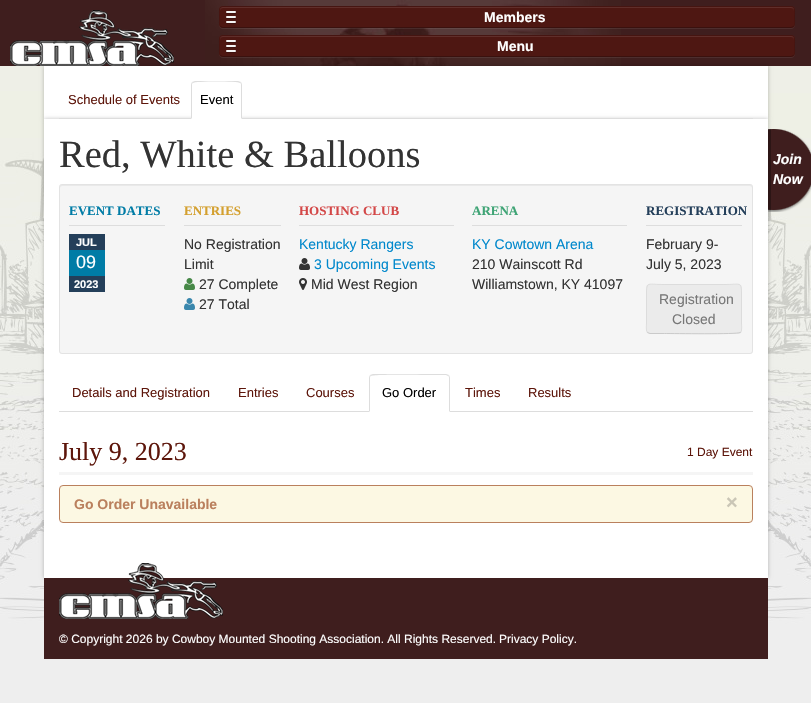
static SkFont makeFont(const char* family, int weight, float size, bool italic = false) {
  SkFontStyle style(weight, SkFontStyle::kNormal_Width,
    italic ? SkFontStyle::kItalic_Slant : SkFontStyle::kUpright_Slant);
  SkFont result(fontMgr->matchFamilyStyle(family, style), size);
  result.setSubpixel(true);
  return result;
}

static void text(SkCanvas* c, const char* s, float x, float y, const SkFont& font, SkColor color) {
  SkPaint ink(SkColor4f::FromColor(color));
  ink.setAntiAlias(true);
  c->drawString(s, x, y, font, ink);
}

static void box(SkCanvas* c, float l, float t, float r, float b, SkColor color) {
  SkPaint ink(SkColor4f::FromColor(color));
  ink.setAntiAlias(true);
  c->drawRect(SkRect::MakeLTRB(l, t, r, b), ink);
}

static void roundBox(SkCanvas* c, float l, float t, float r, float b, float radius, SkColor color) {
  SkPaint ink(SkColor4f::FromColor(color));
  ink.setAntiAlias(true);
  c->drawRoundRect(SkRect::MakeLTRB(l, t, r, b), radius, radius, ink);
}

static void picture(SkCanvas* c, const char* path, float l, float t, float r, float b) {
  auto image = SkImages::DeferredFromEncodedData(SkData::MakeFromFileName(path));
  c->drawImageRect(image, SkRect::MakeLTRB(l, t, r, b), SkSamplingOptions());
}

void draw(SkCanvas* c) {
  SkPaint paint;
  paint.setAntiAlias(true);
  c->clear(0xffeeefe7);
  picture(c, "img_01.png", 672, 93, 811, 703);
  picture(c, "img_02.png", 0, 91, 672, 703);
  box(c, 0, 0, 811, 66, 0xff3f1e1e);
  picture(c, "img_03.png", 205, 0, 621, 66);
  paint.setColor(0x40000000);
  paint.setMaskFilter(SkMaskFilter::MakeBlur(kNormal_SkBlurStyle, 2));
  c->drawRect(SkRect::MakeLTRB(44, 66, 768, 119), paint);
  paint.setMaskFilter(nullptr);
  picture(c, "img_04.png", 10, 10, 174, 66);
  paint.setColor(0x12ffffff);
  c->drawPath(SkPathBuilder().moveTo(219, 24).lineTo(219, 25).cubicTo(219, 27, 221, 29, 223, 29).lineTo(791, 29).cubicTo(793, 29, 795, 27, 795, 25).lineTo(795, 24).cubicTo(795, 26, 793, 28, 791, 28).lineTo(223, 28).cubicTo(221, 28, 219, 26, 219, 24).close().detach(), paint);
  roundBox(c, 219, 6, 795, 28, 4, 0xff4e1712);
  paint.setColor(0xff602e2a);
  c->drawPath(SkPathBuilder().moveTo(223, 8).lineTo(791, 8).cubicTo(793, 8, 794, 9, 794, 11).lineTo(794, 10).cubicTo(794, 8, 793, 7, 791, 7).lineTo(223, 7).cubicTo(221, 7, 220, 8, 220, 10).lineTo(220, 11).cubicTo(220, 9, 221, 8, 223, 8).close().detach(), paint);
  paint.setStyle(SkPaint::kStroke_Style);
  paint.setStrokeWidth(1);
  paint.setColor(0xff3a110e);
  c->drawPath(SkPathBuilder().moveTo(793.5f, 26.5f).lineTo(791, 27.5f).lineTo(223, 27.5f).lineTo(220.5f, 26.5f).detach(), paint);
  paint.setColor(0x1a000000);
  c->drawPath(SkPathBuilder().moveTo(220.5f, 26.5f).cubicTo(218.5f, 24.5f, 219.5f, 19.5f, 219.5f, 17).cubicTo(219.5f, 14, 218, 7.5f, 222.5f, 6.5f).lineTo(791, 6.5f).cubicTo(796, 6.5f, 794.5f, 14, 794.5f, 17).cubicTo(794.5f, 19.5f, 795.5f, 24.5f, 793.5f, 26.5f).detach(), paint);
  paint.setStyle(SkPaint::kFill_Style);
  paint.setColor(0xff3b110e);
  c->drawPath(SkPathBuilder().moveTo(226, 12.5f).cubicTo(225, 14.5f, 230.5f, 14, 231, 14).cubicTo(231.5f, 14, 237, 14.5f, 236, 12.5f).cubicTo(235.5f, 13.5f, 226.5f, 13.5f, 226, 12.5f).close().detach(), paint);
  roundBox(c, 226, 11, 236, 13, 1, 0xfff5f5f5);
  c->drawPath(SkPathBuilder().moveTo(226, 17.5f).cubicTo(225, 19.5f, 230.5f, 19, 231, 19).cubicTo(231.5f, 19, 237, 19.5f, 236, 17.5f).cubicTo(235.5f, 18.5f, 226.5f, 18.5f, 226, 17.5f).close().detach(), paint);
  roundBox(c, 226, 16, 236, 18, 1, 0xfff5f5f5);
  c->drawPath(SkPathBuilder().moveTo(226, 22.5f).cubicTo(225, 24.5f, 230.5f, 24, 231, 24).cubicTo(231.5f, 24, 237, 24.5f, 236, 22.5f).cubicTo(235.5f, 23.5f, 226.5f, 23.5f, 226, 22.5f).close().detach(), paint);
  roundBox(c, 226, 21, 236, 23, 1, 0xfff5f5f5);
  SkFont face1 = makeFont("Liberation Sans", 700, 14);
  text(c, "Members", 484, 22, face1, 0xffffffff);
  paint.setColor(0x12ffffff);
  c->drawPath(SkPathBuilder().moveTo(219, 53).lineTo(219, 54).cubicTo(219, 56, 221, 58, 223, 58).lineTo(791, 58).cubicTo(793, 58, 795, 56, 795, 54).lineTo(795, 53).cubicTo(795, 55, 793, 57, 791, 57).lineTo(223, 57).cubicTo(221, 57, 219, 55, 219, 53).close().detach(), paint);
  roundBox(c, 219, 35, 795, 57, 4, 0xff4e1712);
  paint.setColor(0xff602e2a);
  c->drawPath(SkPathBuilder().moveTo(223, 37).lineTo(791, 37).cubicTo(793, 37, 794, 38, 794, 40).lineTo(794, 39).cubicTo(794, 37, 793, 36, 791, 36).lineTo(223, 36).cubicTo(221, 36, 220, 37, 220, 39).lineTo(220, 40).cubicTo(220, 38, 221, 37, 223, 37).close().detach(), paint);
  paint.setStyle(SkPaint::kStroke_Style);
  paint.setColor(0xff3a110e);
  c->drawPath(SkPathBuilder().moveTo(793.5f, 55.5f).lineTo(791, 56.5f).lineTo(223, 56.5f).lineTo(220.5f, 55.5f).detach(), paint);
  paint.setColor(0x1a000000);
  c->drawPath(SkPathBuilder().moveTo(220.5f, 55.5f).cubicTo(218.5f, 53.5f, 219.5f, 48.5f, 219.5f, 46).cubicTo(219.5f, 43, 218, 36.5f, 222.5f, 35.5f).lineTo(791, 35.5f).cubicTo(796, 35.5f, 794.5f, 43, 794.5f, 46).cubicTo(794.5f, 48.5f, 795.5f, 53.5f, 793.5f, 55.5f).detach(), paint);
  paint.setStyle(SkPaint::kFill_Style);
  paint.setColor(0xff3b110e);
  c->drawPath(SkPathBuilder().moveTo(226, 41.5f).cubicTo(225, 43.5f, 230.5f, 43, 231, 43).cubicTo(231.5f, 43, 237, 43.5f, 236, 41.5f).cubicTo(235.5f, 42.5f, 226.5f, 42.5f, 226, 41.5f).close().detach(), paint);
  roundBox(c, 226, 40, 236, 42, 1, 0xfff5f5f5);
  c->drawPath(SkPathBuilder().moveTo(226, 46.5f).cubicTo(225, 48.5f, 230.5f, 48, 231, 48).cubicTo(231.5f, 48, 237, 48.5f, 236, 46.5f).cubicTo(235.5f, 47.5f, 226.5f, 47.5f, 226, 46.5f).close().detach(), paint);
  roundBox(c, 226, 45, 236, 47, 1, 0xfff5f5f5);
  c->drawPath(SkPathBuilder().moveTo(226, 51.5f).cubicTo(225, 53.5f, 230.5f, 53, 231, 53).cubicTo(231.5f, 53, 237, 53.5f, 236, 51.5f).cubicTo(235.5f, 52.5f, 226.5f, 52.5f, 226, 51.5f).close().detach(), paint);
  roundBox(c, 226, 50, 236, 52, 1, 0xfff5f5f5);
  text(c, "Menu", 497, 51, face1, 0xffffffff);
  box(c, 44, 66, 768, 119, 0xffffffff);
  paint.setColor(0x40000000);
  paint.setMaskFilter(SkMaskFilter::MakeBlur(kNormal_SkBlurStyle, 2));
  c->drawRect(SkRect::MakeLTRB(44, 119, 768, 578), paint);
  paint.setMaskFilter(nullptr);
  box(c, 59, 118, 753, 119, 0xffdddddd);
  SkFont face2 = makeFont("Liberation Sans", 400, 13);
  text(c, "Schedule of Events", 68, 104, face2, 0xff5d160b);
  paint.setColor(0xffffffff);
  c->drawPath(SkPathBuilder().moveTo(195, 81).lineTo(238, 81).cubicTo(240, 81, 242, 83, 242, 85).lineTo(242, 119).lineTo(191, 119).lineTo(191, 85).cubicTo(191, 83, 193, 81, 195, 81).close().detach(), paint);
  paint.setColor(0xffdddddd);
  c->drawPath(SkPathBuilder().moveTo(195, 81).lineTo(192, 82).lineTo(193, 83).cubicTo(194, 81, 239, 81, 240, 83).lineTo(241, 82).lineTo(238, 81).close().detach(), paint);
  c->drawPath(SkPathBuilder().moveTo(242, 119).lineTo(242, 85).cubicTo(242, 84, 241.5f, 83, 241, 82).lineTo(240, 83).cubicTo(241, 83, 241, 84, 241, 85).lineTo(241, 118).close().moveTo(191, 119).lineTo(192, 118).lineTo(192, 85).cubicTo(192, 84, 192, 83, 193, 83).lineTo(192, 82).cubicTo(191.5f, 83, 191, 84, 191, 85).close().detach(), paint);
  text(c, "Event", 200, 104, face2, 0xff000000);
  box(c, 44, 119, 768, 578, 0xffffffff);
  SkFont face3 = makeFont("Liberation Serif", 400, 38.5f);
  text(c, "Red, White & Balloons", 59, 167, face3, 0xff333333);
  roundBox(c, 59, 184, 753, 354, 3, 0xfff5f5f5);
  paint.setColor(0xffe9e9e9);
  c->drawPath(SkPathBuilder().moveTo(62, 186).lineTo(750, 186).cubicTo(751, 186, 752, 187, 752, 188).cubicTo(752, 187, 752, 185, 750, 185).lineTo(62, 185).cubicTo(60, 185, 60, 187, 60, 188).cubicTo(60, 187, 61, 186, 62, 186).close().detach(), paint);
  paint.setStyle(SkPaint::kStroke_Style);
  paint.setColor(0xffe3e3e3);
  c->drawRoundRect(SkRect::MakeLTRB(59.5f, 184.5f, 752.5f, 353.5f), 2.5f, 2.5f, paint);
  box(c, 69, 225, 165, 226, 0xffdddddd);
  SkFont face4 = makeFont("Liberation Serif", 700, 13);
  text(c, "EVENT DATES", 69, 215, face4, 0xff007ca6);
  box(c, 69, 234, 105, 292, 0xff243f5a);
  SkFont face5 = makeFont("Liberation Sans", 700, 11);
  text(c, "JUL", 76, 246, face5, 0xffffffff);
  box(c, 69, 250, 105, 276, 0xff007ca6);
  SkFont face6 = makeFont("Liberation Sans", 400, 18);
  text(c, "09", 76, 268, face6, 0xffffffff);
  text(c, "2023", 74, 288, face5, 0xffffffff);
  box(c, 184, 225, 281, 226, 0xffdddddd);
  text(c, "ENTRIES", 184, 215, face4, 0xffd4a02f);
  SkFont face7 = makeFont("Liberation Sans", 400, 14);
  text(c, "No Registration", 184, 249, face7, 0xff333333);
  text(c, "Limit", 184, 269, face7, 0xff333333);
  picture(c, "img_05.png", 184, 278, 195, 290);
  text(c, "27 Complete", 199, 289, face7, 0xff333333);
  picture(c, "img_06.png", 184, 298, 195, 310);
  text(c, "27 Total", 199, 309, face7, 0xff333333);
  box(c, 299, 225, 454, 226, 0xffdddddd);
  text(c, "HOSTING CLUB", 299, 215, face4, 0xffd34747);
  text(c, "Kentucky Rangers", 299, 249, face7, 0xff0088cc);
  picture(c, "img_07.png", 299, 258, 310, 270);
  text(c, "3 Upcoming Events", 314, 269, face7, 0xff0088cc);
  picture(c, "img_08.png", 299, 278, 307, 290);
  text(c, "Mid West Region", 311, 289, face7, 0xff333333);
  box(c, 472, 225, 627, 226, 0xffdddddd);
  text(c, "ARENA", 472, 215, face4, 0xff3fa475);
  text(c, "KY Cowtown Arena", 472, 249, face7, 0xff0088cc);
  text(c, "210 Wainscott Rd", 472, 269, face7, 0xff333333);
  text(c, "Williamstown, KY 41097", 472, 289, face7, 0xff333333);
  box(c, 646, 225, 742, 226, 0xffdddddd);
  text(c, "REGISTRATION", 646, 215, face4, 0xff243f5a);
  text(c, "February 9-", 646, 249, face7, 0xff333333);
  text(c, "July 5, 2023", 646, 269, face7, 0xff333333);
  roundBox(c, 646, 284, 742, 334, 4, 0xffebebeb);
  paint.setColor(0xffcacaca);
  c->drawPath(SkPathBuilder().moveTo(740.5f, 332.5f).lineTo(740, 332.5f).cubicTo(738, 334.5f, 673, 333.5f, 664.5f, 333.5f).lineTo(650, 333.5f).lineTo(647.5f, 332.5f).detach(), paint);
  paint.setColor(0x1a565656);
  c->drawPath(SkPathBuilder().moveTo(647.5f, 332.5f).cubicTo(645.5f, 330.5f, 646.5f, 324.5f, 646.5f, 323).lineTo(646.5f, 295).cubicTo(646.5f, 280.5f, 647.5f, 284.5f, 664.5f, 284.5f).lineTo(723.5f, 284.5f).cubicTo(740.5f, 284.5f, 741.5f, 280.5f, 741.5f, 295).lineTo(741.5f, 323).cubicTo(741.5f, 324.5f, 742.5f, 330.5f, 740.5f, 332.5f).detach(), paint);
  text(c, "Registration", 659, 304, face7, 0xff777777);
  text(c, "Closed", 672, 324, face7, 0xff777777);
  box(c, 59, 411, 753, 412, 0xffdddddd);
  text(c, "Details and Registration", 72, 397, face2, 0xff5d160b);
  text(c, "Entries", 238, 397, face2, 0xff5d160b);
  text(c, "Courses", 306, 397, face2, 0xff5d160b);
  paint.setStyle(SkPaint::kFill_Style);
  paint.setColor(0xffffffff);
  c->drawPath(SkPathBuilder().moveTo(373, 374).lineTo(446, 374).cubicTo(448, 374, 450, 376, 450, 378).lineTo(450, 412).lineTo(369, 412).lineTo(369, 378).cubicTo(369, 376, 371, 374, 373, 374).close().detach(), paint);
  paint.setColor(0xffdddddd);
  c->drawPath(SkPathBuilder().moveTo(373, 374).lineTo(370, 375).lineTo(371, 376).cubicTo(373, 374, 427, 375, 434, 375).lineTo(446, 375).lineTo(448, 376).lineTo(449, 375).lineTo(446, 374).close().detach(), paint);
  c->drawPath(SkPathBuilder().moveTo(450, 412).lineTo(450, 378).cubicTo(450, 377, 449.5f, 376, 449, 375).lineTo(448, 376).cubicTo(449, 376, 449, 377, 449, 378).lineTo(449, 411).close().detach(), paint);
  c->drawPath(SkPathBuilder().moveTo(369, 412).lineTo(370, 411).lineTo(370, 378).cubicTo(370, 377, 370, 376, 371, 376).lineTo(370, 375).cubicTo(369.5f, 376, 369, 377, 369, 378).close().detach(), paint);
  text(c, "Go Order", 382, 397, face2, 0xff000000);
  text(c, "Times", 465, 397, face2, 0xff5d160b);
  text(c, "Results", 528, 397, face2, 0xff5d160b);
  box(c, 59, 472, 753, 475, 0xfff5f5f5);
  SkFont face8 = makeFont("Liberation Serif", 400, 26);
  text(c, "July 9, 2023", 59, 460, face8, 0xff5d160b);
  SkFont face9 = makeFont("Liberation Sans", 400, 12);
  text(c, "1 Day Event", 687, 456, face9, 0xff5d160b);
  paint.setColor(0xfffcf8e3);
  c->drawRoundRect(SkRect::MakeLTRB(59.5f, 485.5f, 752.5f, 522.5f), 3.5f, 3.5f, paint);
  paint.setStyle(SkPaint::kStroke_Style);
  paint.setColor(0xffba805d);
  c->drawRoundRect(SkRect::MakeLTRB(59.5f, 485.5f, 752.5f, 522.5f), 3.5f, 3.5f, paint);
  text(c, "Go Order Unavailable", 74, 509, face1, 0xffba805d);
  SkFont face10 = makeFont("Liberation Sans", 700, 20);
  text(c, "×", 726, 509, face10, 0xffcac6b6);
  picture(c, "img_09.png", 768, 129, 811, 212);
  SkFont face11 = makeFont("Liberation Sans", 700, 14, true);
  text(c, "Join", 773, 164, face11, 0xffffffff);
  text(c, "Now", 773, 184, face11, 0xffffffff);
  box(c, 44, 578, 768, 659, 0xff3f1e1e);
  picture(c, "img_10.png", 59, 563, 223, 619);
  text(c, "© Copyright 2026 by Cowboy Mounted Shooting Association. All Rights Reserved.", 59, 643, face9, 0xffffffff);
  text(c, "Privacy Policy.", 499, 643, face9, 0xffffffff);
}
